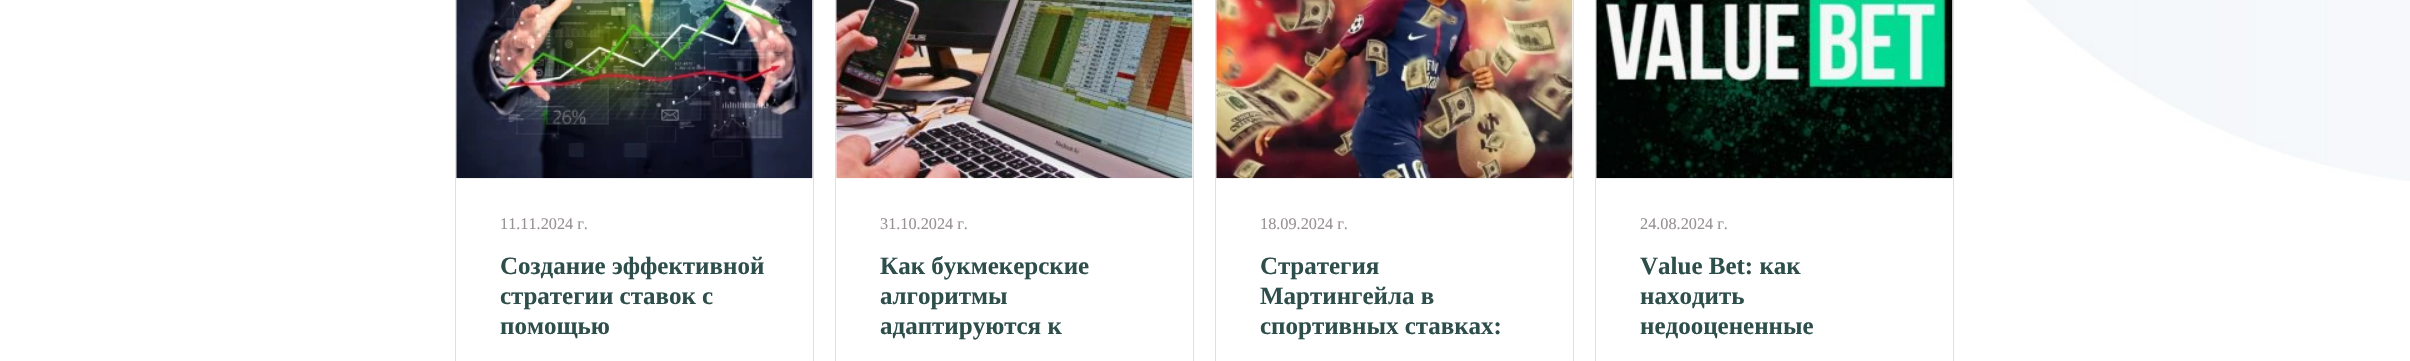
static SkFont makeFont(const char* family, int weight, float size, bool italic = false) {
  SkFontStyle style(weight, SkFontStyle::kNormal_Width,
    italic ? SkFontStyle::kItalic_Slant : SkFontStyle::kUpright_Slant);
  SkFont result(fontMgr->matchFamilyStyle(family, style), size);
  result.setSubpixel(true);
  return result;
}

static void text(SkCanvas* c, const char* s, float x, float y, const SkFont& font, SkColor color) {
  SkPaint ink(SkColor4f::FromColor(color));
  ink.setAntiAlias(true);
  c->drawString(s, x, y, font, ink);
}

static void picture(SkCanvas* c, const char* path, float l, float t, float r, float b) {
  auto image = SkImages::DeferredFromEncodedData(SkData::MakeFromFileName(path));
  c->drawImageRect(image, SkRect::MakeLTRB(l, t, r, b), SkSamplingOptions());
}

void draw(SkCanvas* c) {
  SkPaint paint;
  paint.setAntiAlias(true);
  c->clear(0xffffffff);
  picture(c, "img_01.png", 2025, 0, 2410, 181);
  paint.setStyle(SkPaint::kStroke_Style);
  paint.setStrokeWidth(1);
  paint.setColor(0xffd9e1e7);
  c->drawRect(SkRect::MakeLTRB(455.5f, -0.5f, 813.5f, 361.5f), paint);
  picture(c, "img_02.png", 456, 0, 813, 179);
  SkFont face1 = makeFont("Liberation Serif", 400, 16.25f);
  text(c, "11.11.2024 г.", 500, 229, face1, 0xff999292);
  SkFont face2 = makeFont("Liberation Serif", 700, 25);
  text(c, "Создание эффективной", 500, 274, face2, 0xff2e4e4b);
  text(c, "стратегии ставок с", 500, 304, face2, 0xff2e4e4b);
  text(c, "помощью", 500, 334, face2, 0xff2e4e4b);
  c->drawRect(SkRect::MakeLTRB(835.5f, -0.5f, 1193.5f, 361.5f), paint);
  picture(c, "img_03.png", 836, 0, 1193, 179);
  text(c, "31.10.2024 г.", 880, 229, face1, 0xff999292);
  text(c, "Как букмекерские", 880, 274, face2, 0xff2e4e4b);
  text(c, "алгоритмы", 880, 304, face2, 0xff2e4e4b);
  text(c, "адаптируются к", 880, 334, face2, 0xff2e4e4b);
  c->drawRect(SkRect::MakeLTRB(1215.5f, -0.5f, 1573.5f, 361.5f), paint);
  picture(c, "img_04.png", 1216, 0, 1573, 179);
  text(c, "18.09.2024 г.", 1260, 229, face1, 0xff999292);
  text(c, "Стратегия", 1260, 274, face2, 0xff2e4e4b);
  text(c, "Мартингейла в", 1260, 304, face2, 0xff2e4e4b);
  text(c, "спортивных ставках:", 1260, 334, face2, 0xff2e4e4b);
  c->drawRect(SkRect::MakeLTRB(1595.5f, -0.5f, 1953.5f, 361.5f), paint);
  picture(c, "img_05.png", 1596, 0, 1953, 179);
  text(c, "24.08.2024 г.", 1640, 229, face1, 0xff999292);
  text(c, "Value Bet: как", 1640, 274, face2, 0xff2e4e4b);
  text(c, "находить", 1640, 304, face2, 0xff2e4e4b);
  text(c, "недооцененные", 1640, 334, face2, 0xff2e4e4b);
}
